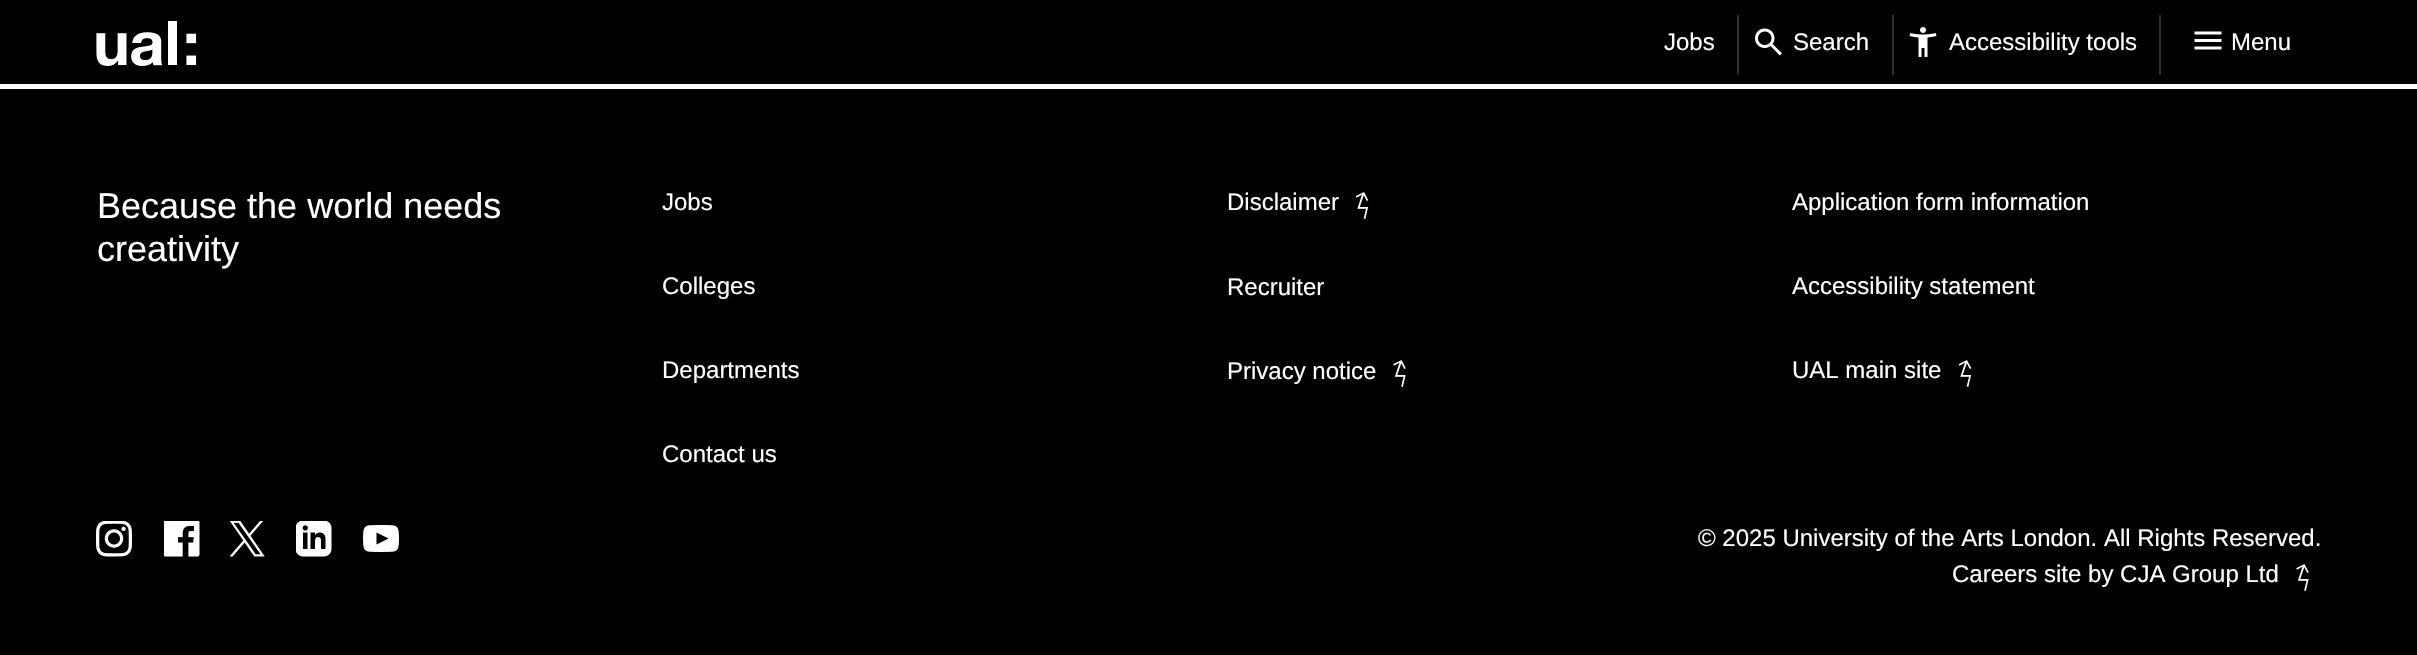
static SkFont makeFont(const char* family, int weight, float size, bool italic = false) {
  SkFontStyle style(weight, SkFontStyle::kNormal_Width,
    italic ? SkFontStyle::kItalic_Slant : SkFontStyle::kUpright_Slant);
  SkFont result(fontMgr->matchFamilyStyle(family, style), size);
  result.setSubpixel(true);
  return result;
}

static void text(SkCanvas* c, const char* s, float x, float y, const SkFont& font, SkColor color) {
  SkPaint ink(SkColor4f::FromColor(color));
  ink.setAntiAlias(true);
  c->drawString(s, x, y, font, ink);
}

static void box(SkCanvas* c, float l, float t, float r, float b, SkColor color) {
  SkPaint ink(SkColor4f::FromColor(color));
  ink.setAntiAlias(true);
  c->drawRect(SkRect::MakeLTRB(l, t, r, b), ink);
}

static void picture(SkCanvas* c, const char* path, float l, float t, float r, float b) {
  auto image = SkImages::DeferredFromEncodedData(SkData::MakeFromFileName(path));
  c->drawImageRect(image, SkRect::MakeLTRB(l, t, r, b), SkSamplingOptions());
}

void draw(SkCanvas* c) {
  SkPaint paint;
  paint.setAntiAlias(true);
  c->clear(0xffffffff);
  box(c, 0, 0, 2417, 84, 0xff000000);
  picture(c, "img_01.png", 96, 21, 197, 66);
  SkFont face1 = makeFont("Liberation Sans", 400, 24);
  text(c, "Jobs", 1664, 50, face1, 0xffffffff);
  box(c, 1737, 15, 1739, 75, 0xff313131);
  picture(c, "img_02.png", 1755, 28, 1782, 56);
  text(c, "Search", 1793, 50, face1, 0xffffffff);
  box(c, 1892, 15, 1894, 75, 0xff313131);
  picture(c, "img_03.png", 1909, 27, 1937, 57);
  text(c, "Accessibility tools", 1949, 50, face1, 0xffffffff);
  box(c, 2159, 15, 2161, 75, 0xff313131);
  picture(c, "img_04.png", 2194, 31, 2222, 50);
  text(c, "Menu", 2231, 50, face1, 0xffffffff);
  box(c, 0, 89, 2417, 655, 0xff000000);
  SkFont face2 = makeFont("Liberation Sans", 400, 36);
  text(c, "Because the world needs", 97, 218, face2, 0xffffffff);
  text(c, "creativity", 97, 261, face2, 0xffffffff);
  text(c, "Jobs", 662, 210, face1, 0xffffffff);
  text(c, "Colleges", 662, 294, face1, 0xffffffff);
  text(c, "Departments", 662, 378, face1, 0xffffffff);
  text(c, "Contact us", 662, 462, face1, 0xffffffff);
  text(c, "Disclaimer", 1227, 210, face1, 0xffffffff);
  picture(c, "img_05.png", 1355, 192, 1369, 219);
  text(c, "Recruiter", 1227, 295, face1, 0xffffffff);
  text(c, "Privacy notice", 1227, 379, face1, 0xffffffff);
  picture(c, "img_06.png", 1393, 360, 1406, 387);
  text(c, "Application form information", 1792, 210, face1, 0xffffffff);
  text(c, "Accessibility statement", 1792, 294, face1, 0xffffffff);
  text(c, "UAL main site", 1792, 378, face1, 0xffffffff);
  picture(c, "img_05.png", 1958, 360, 1972, 387);
  picture(c, "img_07.png", 96, 521, 132, 557);
  picture(c, "img_08.png", 164, 521, 200, 557);
  picture(c, "img_09.png", 230, 521, 265, 557);
  picture(c, "img_10.png", 296, 521, 332, 557);
  picture(c, "img_11.png", 363, 525, 399, 552);
  text(c, "© 2025 University of the Arts London. All Rights Reserved.", 1698, 546, face1, 0xffffffff);
  text(c, "Careers site by CJA Group Ltd", 1952, 582, face1, 0xffffffff);
  picture(c, "img_06.png", 2296, 564, 2309, 591);
}
